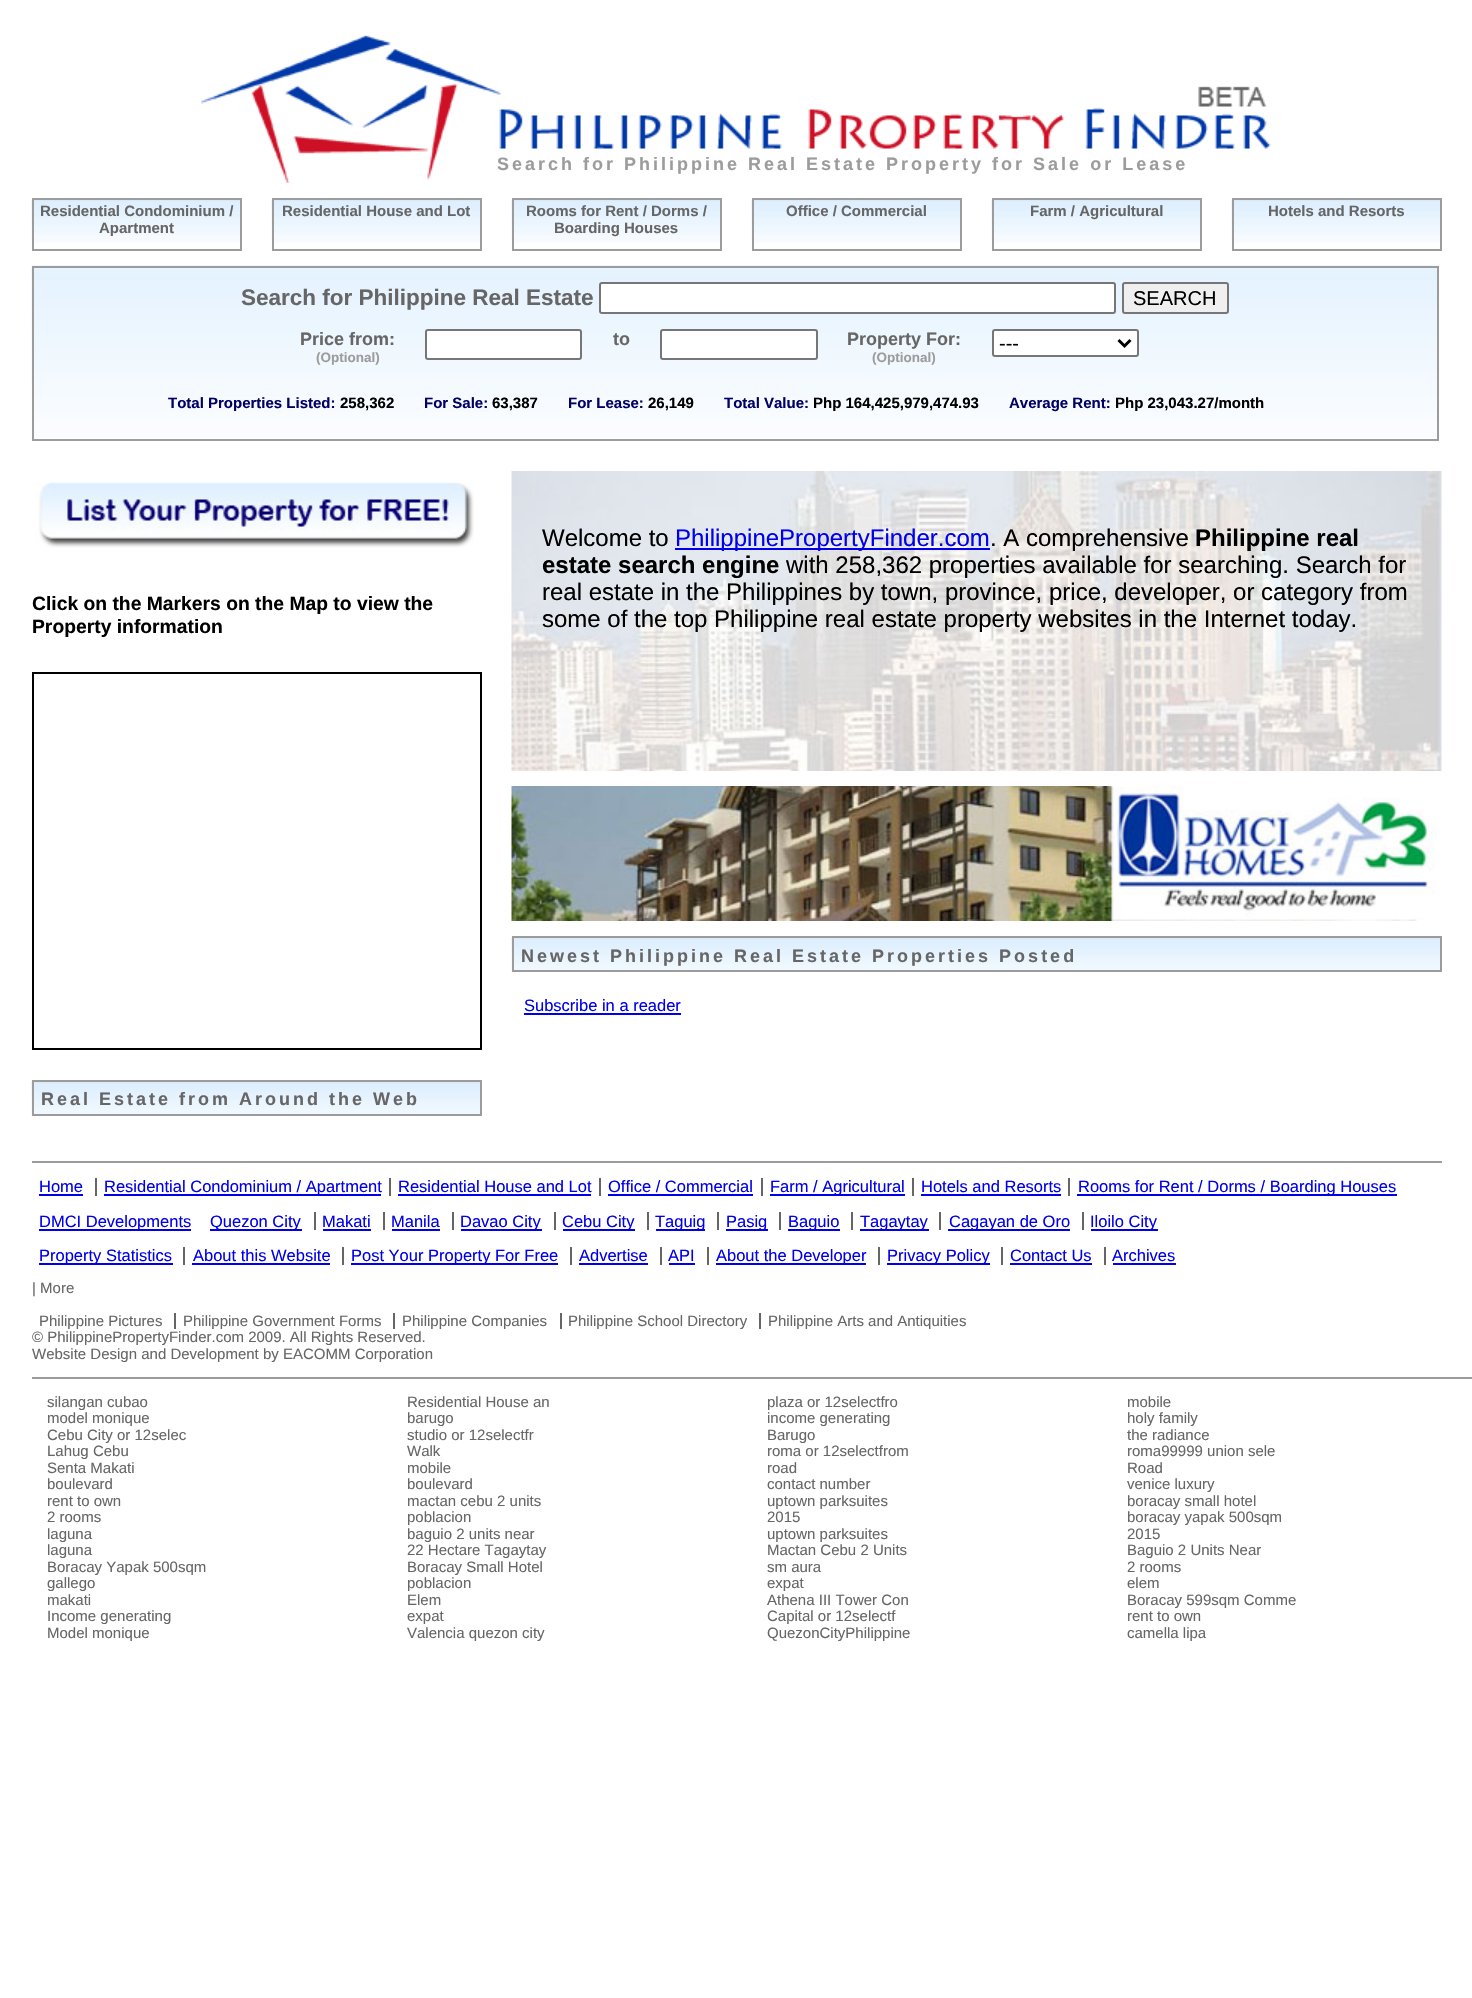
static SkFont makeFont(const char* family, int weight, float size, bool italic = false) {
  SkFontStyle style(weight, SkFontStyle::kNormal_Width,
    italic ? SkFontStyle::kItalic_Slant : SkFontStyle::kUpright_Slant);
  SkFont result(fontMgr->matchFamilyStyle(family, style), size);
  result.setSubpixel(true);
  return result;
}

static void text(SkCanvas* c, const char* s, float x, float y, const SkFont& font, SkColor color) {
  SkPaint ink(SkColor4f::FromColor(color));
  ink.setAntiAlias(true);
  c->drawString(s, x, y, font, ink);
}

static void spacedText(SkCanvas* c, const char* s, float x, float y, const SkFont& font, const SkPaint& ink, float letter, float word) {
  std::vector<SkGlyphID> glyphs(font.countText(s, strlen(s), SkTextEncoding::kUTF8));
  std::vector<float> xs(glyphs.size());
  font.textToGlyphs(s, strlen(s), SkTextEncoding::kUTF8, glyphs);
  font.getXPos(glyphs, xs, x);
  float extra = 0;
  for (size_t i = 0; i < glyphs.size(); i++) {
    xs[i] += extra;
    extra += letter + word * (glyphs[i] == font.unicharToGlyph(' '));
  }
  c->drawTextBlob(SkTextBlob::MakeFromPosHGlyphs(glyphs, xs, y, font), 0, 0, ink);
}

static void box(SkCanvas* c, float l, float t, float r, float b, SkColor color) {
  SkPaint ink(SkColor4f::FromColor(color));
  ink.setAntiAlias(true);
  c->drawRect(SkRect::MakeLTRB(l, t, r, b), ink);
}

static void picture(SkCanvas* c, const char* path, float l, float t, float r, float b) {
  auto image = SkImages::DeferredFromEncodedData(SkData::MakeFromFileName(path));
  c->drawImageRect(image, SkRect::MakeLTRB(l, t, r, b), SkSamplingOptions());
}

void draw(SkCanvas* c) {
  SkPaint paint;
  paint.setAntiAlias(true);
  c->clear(0xffffffff);
  picture(c, "img_01.png", 201, 35, 1271, 183);
  SkFont face1 = makeFont("Liberation Sans", 700, 18);
  paint.setColor(0xff9c9c9c);
  spacedText(c, "Search for Philippine Real Estate Property for Sale or Lease", 497, 170, face1, paint, 3, 0);
  picture(c, "img_02.png", 31, 199, 240, 243);
  paint.setStyle(SkPaint::kStroke_Style);
  paint.setStrokeWidth(2);
  c->drawRect(SkRect::MakeLTRB(33, 199, 241, 250), paint);
  SkFont face2 = makeFont("Liberation Sans", 700, 15);
  text(c, "Residential Condominium /", 40, 216, face2, 0xff666666);
  text(c, "Apartment", 99, 233, face2, 0xff666666);
  picture(c, "img_02.png", 271, 199, 480, 243);
  c->drawRect(SkRect::MakeLTRB(273, 199, 481, 250), paint);
  text(c, "Residential House and Lot", 282, 216, face2, 0xff666666);
  picture(c, "img_02.png", 511, 199, 720, 243);
  c->drawRect(SkRect::MakeLTRB(513, 199, 721, 250), paint);
  text(c, "Rooms for Rent / Dorms /", 526, 216, face2, 0xff666666);
  text(c, "Boarding Houses", 554, 233, face2, 0xff666666);
  picture(c, "img_02.png", 751, 199, 960, 243);
  c->drawRect(SkRect::MakeLTRB(753, 199, 961, 250), paint);
  text(c, "Office / Commercial", 786, 216, face2, 0xff666666);
  picture(c, "img_02.png", 991, 199, 1200, 243);
  c->drawRect(SkRect::MakeLTRB(993, 199, 1201, 250), paint);
  text(c, "Farm / Agricultural", 1030, 216, face2, 0xff666666);
  picture(c, "img_02.png", 1231, 199, 1440, 243);
  c->drawRect(SkRect::MakeLTRB(1233, 199, 1441, 250), paint);
  text(c, "Hotels and Resorts", 1268, 216, face2, 0xff666666);
  picture(c, "img_03.png", 31, 265, 1439, 438);
  c->drawRect(SkRect::MakeLTRB(33, 267, 1438, 440), paint);
  SkFont face3 = makeFont("Liberation Sans", 700, 22.5f);
  text(c, "Search for Philippine Real Estate", 241, 305, face3, 0xff666666);
  paint.setStyle(SkPaint::kFill_Style);
  paint.setColor(0xffffffff);
  c->drawRoundRect(SkRect::MakeLTRB(600, 283, 1115, 313), 2, 2, paint);
  paint.setStyle(SkPaint::kStroke_Style);
  paint.setColor(0xff767676);
  c->drawRoundRect(SkRect::MakeLTRB(600, 283, 1115, 313), 2, 2, paint);
  paint.setStyle(SkPaint::kFill_Style);
  paint.setColor(0xffefefef);
  c->drawRoundRect(SkRect::MakeLTRB(1123, 283, 1228, 313), 2, 2, paint);
  paint.setStyle(SkPaint::kStroke_Style);
  paint.setColor(0xff767676);
  c->drawRoundRect(SkRect::MakeLTRB(1123, 283, 1228, 313), 2, 2, paint);
  SkFont face4 = makeFont("Liberation Sans", 400, 20);
  text(c, "SEARCH", 1133, 305, face4, 0xff000000);
  text(c, "Price from:", 300, 345, face1, 0xff666666);
  SkFont face5 = makeFont("Liberation Sans", 700, 13.5f);
  text(c, "(Optional)", 316, 362, face5, 0xff9c9c9c);
  paint.setStyle(SkPaint::kFill_Style);
  paint.setColor(0xffffffff);
  c->drawRoundRect(SkRect::MakeLTRB(426, 330, 581, 359), 2, 2, paint);
  paint.setStyle(SkPaint::kStroke_Style);
  paint.setColor(0xff767676);
  c->drawRoundRect(SkRect::MakeLTRB(426, 330, 581, 359), 2, 2, paint);
  text(c, "to", 613, 345, face1, 0xff666666);
  paint.setStyle(SkPaint::kFill_Style);
  paint.setColor(0xffffffff);
  c->drawRoundRect(SkRect::MakeLTRB(661, 330, 817, 359), 2, 2, paint);
  paint.setStyle(SkPaint::kStroke_Style);
  paint.setColor(0xff767676);
  c->drawRoundRect(SkRect::MakeLTRB(661, 330, 817, 359), 2, 2, paint);
  text(c, "Property For:", 847, 345, face1, 0xff666666);
  text(c, "(Optional)", 872, 362, face5, 0xff9c9c9c);
  paint.setStyle(SkPaint::kFill_Style);
  paint.setColor(0xffffffff);
  c->drawRoundRect(SkRect::MakeLTRB(993, 330, 1138, 356), 2, 2, paint);
  paint.setStyle(SkPaint::kStroke_Style);
  paint.setColor(0xff767676);
  c->drawRoundRect(SkRect::MakeLTRB(993, 330, 1138, 356), 2, 2, paint);
  paint.setStrokeWidth(3);
  paint.setColor(0xff000000);
  c->drawPath(SkPathBuilder().moveTo(1118.5f, 340).lineTo(1124.5f, 346).lineTo(1130.5f, 340).detach(), paint);
  text(c, "---", 999, 350, face4, 0xff000000);
  text(c, "Total Properties Listed:", 168, 408, face2, 0xff000066);
  text(c, "258,362", 340, 408, face2, 0xff000000);
  text(c, "For Sale:", 424, 408, face2, 0xff000066);
  text(c, "63,387", 492, 408, face2, 0xff000000);
  text(c, "For Lease:", 568, 408, face2, 0xff000066);
  text(c, "26,149", 648, 408, face2, 0xff000000);
  text(c, "Total Value:", 724, 408, face2, 0xff000066);
  text(c, "Php 164,425,979,474.93", 813, 408, face2, 0xff000000);
  text(c, "Average Rent:", 1009, 408, face2, 0xff000066);
  text(c, "Php 23,043.27/month", 1115, 408, face2, 0xff000000);
  picture(c, "img_04.png", 35, 482, 474, 548);
  SkFont face6 = makeFont("Liberation Sans", 700, 19.3f);
  text(c, "Click on the Markers on the Map to view the", 32, 610, face6, 0xff000000);
  text(c, "Property information", 32, 633, face6, 0xff000000);
  paint.setStrokeWidth(2);
  c->drawRect(SkRect::MakeLTRB(33, 673, 481, 1049), paint);
  picture(c, "img_05.png", 31, 1081, 480, 1116);
  paint.setColor(0xff9c9c9c);
  c->drawRect(SkRect::MakeLTRB(33, 1081, 481, 1115), paint);
  paint.setStyle(SkPaint::kFill_Style);
  paint.setColor(0xff666666);
  spacedText(c, "Real Estate from Around the Web", 41, 1105, face1, paint, 3, 0);
  picture(c, "img_06.png", 511, 471, 1442, 771);
  SkFont face7 = makeFont("Liberation Sans", 400, 24);
  text(c, "Welcome to", 542, 546, face7, 0xff000000);
  box(c, 675, 548, 990, 550, 0xff0000ee);
  text(c, "PhilippinePropertyFinder.com", 675, 546, face7, 0xff0000ee);
  text(c, ". A comprehensive", 990, 546, face7, 0xff000000);
  SkFont face8 = makeFont("Liberation Sans", 700, 24);
  text(c, "Philippine real", 1195, 546, face8, 0xff000000);
  text(c, "estate search engine", 542, 573, face8, 0xff000000);
  text(c, "with 258,362 properties available for searching. Search for", 786, 573, face7, 0xff000000);
  text(c, "real estate in the Philippines by town, province, price, developer, or category from", 542, 600, face7, 0xff000000);
  text(c, "some of the top Philippine real estate property websites in the Internet today.", 542, 627, face7, 0xff000000);
  picture(c, "img_07.png", 511, 786, 1435, 921);
  picture(c, "img_08.png", 511, 937, 1440, 972);
  paint.setStyle(SkPaint::kStroke_Style);
  paint.setColor(0xff9c9c9c);
  c->drawRect(SkRect::MakeLTRB(513, 937, 1441, 971), paint);
  paint.setStyle(SkPaint::kFill_Style);
  paint.setColor(0xff666666);
  spacedText(c, "Newest Philippine Real Estate Properties Posted", 521, 962, face1, paint, 3, 0);
  SkFont face9 = makeFont("Liberation Sans", 400, 16.5f);
  text(c, "Subscribe in a reader", 524, 1011, face9, 0xff0000ee);
  box(c, 524, 1013, 681, 1015, 0xff0000ee);
  box(c, 32, 1161, 1442, 1163, 0xff9c9c9c);
  text(c, "Home", 39, 1192, face9, 0xff0000ee);
  box(c, 39, 1194, 83, 1196, 0xff0000ee);
  box(c, 104, 1194, 381, 1196, 0xff0000ee);
  text(c, "Residential Condominium / Apartment", 104, 1192, face9, 0xff0000ee);
  box(c, 95, 1178, 97, 1196, 0xff666666);
  text(c, "Residential House and Lot", 398, 1192, face9, 0xff0000ee);
  box(c, 389, 1178, 391, 1196, 0xff666666);
  box(c, 398, 1194, 591, 1196, 0xff0000ee);
  text(c, "Office / Commercial", 608, 1192, face9, 0xff0000ee);
  box(c, 599, 1178, 601, 1196, 0xff666666);
  box(c, 608, 1194, 753, 1196, 0xff0000ee);
  box(c, 770, 1194, 905, 1196, 0xff0000ee);
  text(c, "Farm / Agricultural", 770, 1192, face9, 0xff0000ee);
  box(c, 761, 1178, 763, 1196, 0xff666666);
  text(c, "Hotels and Resorts", 921, 1192, face9, 0xff0000ee);
  box(c, 912, 1178, 914, 1196, 0xff666666);
  box(c, 921, 1194, 1061, 1196, 0xff0000ee);
  box(c, 1077, 1194, 1397, 1196, 0xff0000ee);
  text(c, "Rooms for Rent / Dorms / Boarding Houses", 1078, 1192, face9, 0xff0000ee);
  box(c, 1068, 1178, 1070, 1196, 0xff666666);
  box(c, 39, 1229, 191, 1231, 0xff0000ee);
  text(c, "DMCI Developments", 39, 1227, face9, 0xff0000ee);
  box(c, 210, 1229, 302, 1231, 0xff0000ee);
  text(c, "Quezon City", 210, 1227, face9, 0xff0000ee);
  text(c, "Makati", 322, 1227, face9, 0xff0000ee);
  box(c, 314, 1212, 316, 1230, 0xff666666);
  box(c, 323, 1229, 371, 1231, 0xff0000ee);
  text(c, "Manila", 391, 1227, face9, 0xff0000ee);
  box(c, 383, 1212, 385, 1230, 0xff666666);
  box(c, 392, 1229, 440, 1231, 0xff0000ee);
  box(c, 461, 1229, 542, 1231, 0xff0000ee);
  text(c, "Davao City", 460, 1227, face9, 0xff0000ee);
  box(c, 452, 1212, 454, 1230, 0xff666666);
  box(c, 563, 1229, 635, 1231, 0xff0000ee);
  text(c, "Cebu City", 562, 1227, face9, 0xff0000ee);
  box(c, 554, 1212, 556, 1230, 0xff666666);
  box(c, 656, 1229, 705, 1231, 0xff0000ee);
  text(c, "Taguig", 655, 1227, face9, 0xff0000ee);
  box(c, 647, 1212, 649, 1230, 0xff666666);
  box(c, 726, 1229, 768, 1231, 0xff0000ee);
  text(c, "Pasig", 726, 1227, face9, 0xff0000ee);
  box(c, 717, 1212, 719, 1230, 0xff666666);
  box(c, 788, 1229, 840, 1231, 0xff0000ee);
  text(c, "Baguio", 788, 1227, face9, 0xff0000ee);
  box(c, 779, 1212, 781, 1230, 0xff666666);
  box(c, 860, 1229, 929, 1231, 0xff0000ee);
  text(c, "Tagaytay", 860, 1227, face9, 0xff0000ee);
  box(c, 851, 1212, 853, 1230, 0xff666666);
  box(c, 948, 1229, 1070, 1231, 0xff0000ee);
  text(c, "Cagayan de Oro", 949, 1227, face9, 0xff0000ee);
  box(c, 939, 1212, 941, 1230, 0xff666666);
  box(c, 1091, 1229, 1158, 1231, 0xff0000ee);
  text(c, "Iloilo City", 1090, 1227, face9, 0xff0000ee);
  box(c, 1082, 1212, 1084, 1230, 0xff666666);
  box(c, 39, 1263, 173, 1265, 0xff0000ee);
  text(c, "Property Statistics", 39, 1261, face9, 0xff0000ee);
  text(c, "About this Website", 193, 1261, face9, 0xff0000ee);
  box(c, 183, 1247, 185, 1265, 0xff666666);
  box(c, 192, 1263, 330, 1265, 0xff0000ee);
  box(c, 351, 1263, 558, 1265, 0xff0000ee);
  text(c, "Post Your Property For Free", 351, 1261, face9, 0xff0000ee);
  box(c, 342, 1247, 344, 1265, 0xff666666);
  text(c, "Advertise", 579, 1261, face9, 0xff0000ee);
  box(c, 570, 1247, 572, 1265, 0xff666666);
  box(c, 579, 1263, 648, 1265, 0xff0000ee);
  text(c, "API", 668, 1261, face9, 0xff0000ee);
  box(c, 660, 1247, 662, 1265, 0xff666666);
  box(c, 669, 1263, 695, 1265, 0xff0000ee);
  box(c, 716, 1263, 866, 1265, 0xff0000ee);
  text(c, "About the Developer", 716, 1261, face9, 0xff0000ee);
  box(c, 707, 1247, 709, 1265, 0xff666666);
  box(c, 887, 1263, 990, 1265, 0xff0000ee);
  text(c, "Privacy Policy", 887, 1261, face9, 0xff0000ee);
  box(c, 878, 1247, 880, 1265, 0xff666666);
  text(c, "Contact Us", 1010, 1261, face9, 0xff0000ee);
  box(c, 1001, 1247, 1003, 1265, 0xff666666);
  box(c, 1010, 1263, 1092, 1265, 0xff0000ee);
  text(c, "Archives", 1112, 1261, face9, 0xff0000ee);
  box(c, 1104, 1247, 1106, 1265, 0xff666666);
  box(c, 1113, 1263, 1176, 1265, 0xff0000ee);
  SkFont face10 = makeFont("Liberation Sans", 400, 15);
  text(c, "| More", 32, 1293, face10, 0xff666666);
  text(c, "Philippine Pictures", 39, 1326, face10, 0xff666666);
  text(c, "Philippine Government Forms", 183, 1326, face10, 0xff666666);
  box(c, 174, 1313, 176, 1329, 0xff666666);
  text(c, "Philippine Companies", 402, 1326, face10, 0xff666666);
  box(c, 393, 1313, 395, 1329, 0xff666666);
  text(c, "Philippine School Directory", 568, 1326, face10, 0xff666666);
  box(c, 560, 1313, 562, 1329, 0xff666666);
  text(c, "Philippine Arts and Antiquities", 768, 1326, face10, 0xff666666);
  box(c, 759, 1313, 761, 1329, 0xff666666);
  text(c, "© PhilippinePropertyFinder.com 2009. All Rights Reserved.", 32, 1342, face10, 0xff666666);
  text(c, "Website Design and Development by EACOMM Corporation", 32, 1359, face10, 0xff666666);
  box(c, 32, 1377, 1472, 1379, 0xff9c9c9c);
  text(c, "silangan cubao", 47, 1407, face10, 0xff666666);
  text(c, "Residential House an", 407, 1407, face10, 0xff666666);
  text(c, "plaza or 12selectfro", 767, 1407, face10, 0xff666666);
  text(c, "mobile", 1127, 1407, face10, 0xff666666);
  text(c, "model monique", 47, 1423, face10, 0xff666666);
  text(c, "barugo", 407, 1423, face10, 0xff666666);
  text(c, "income generating", 767, 1423, face10, 0xff666666);
  text(c, "holy family", 1127, 1423, face10, 0xff666666);
  text(c, "Cebu City or 12selec", 47, 1440, face10, 0xff666666);
  text(c, "studio or 12selectfr", 407, 1440, face10, 0xff666666);
  text(c, "Barugo", 767, 1440, face10, 0xff666666);
  text(c, "the radiance", 1127, 1440, face10, 0xff666666);
  text(c, "Lahug Cebu", 47, 1456, face10, 0xff666666);
  text(c, "Walk", 407, 1456, face10, 0xff666666);
  text(c, "roma or 12selectfrom", 767, 1456, face10, 0xff666666);
  text(c, "roma99999 union sele", 1127, 1456, face10, 0xff666666);
  text(c, "Senta Makati", 47, 1473, face10, 0xff666666);
  text(c, "mobile", 407, 1473, face10, 0xff666666);
  text(c, "road", 767, 1473, face10, 0xff666666);
  text(c, "Road", 1127, 1473, face10, 0xff666666);
  text(c, "boulevard", 47, 1489, face10, 0xff666666);
  text(c, "boulevard", 407, 1489, face10, 0xff666666);
  text(c, "contact number", 767, 1489, face10, 0xff666666);
  text(c, "venice luxury", 1127, 1489, face10, 0xff666666);
  text(c, "rent to own", 47, 1506, face10, 0xff666666);
  text(c, "mactan cebu 2 units", 407, 1506, face10, 0xff666666);
  text(c, "uptown parksuites", 767, 1506, face10, 0xff666666);
  text(c, "boracay small hotel", 1127, 1506, face10, 0xff666666);
  text(c, "2 rooms", 47, 1522, face10, 0xff666666);
  text(c, "poblacion", 407, 1522, face10, 0xff666666);
  text(c, "2015", 767, 1522, face10, 0xff666666);
  text(c, "boracay yapak 500sqm", 1127, 1522, face10, 0xff666666);
  text(c, "laguna", 47, 1539, face10, 0xff666666);
  text(c, "baguio 2 units near", 407, 1539, face10, 0xff666666);
  text(c, "uptown parksuites", 767, 1539, face10, 0xff666666);
  text(c, "2015", 1127, 1539, face10, 0xff666666);
  text(c, "laguna", 47, 1555, face10, 0xff666666);
  text(c, "22 Hectare Tagaytay", 407, 1555, face10, 0xff666666);
  text(c, "Mactan Cebu 2 Units", 767, 1555, face10, 0xff666666);
  text(c, "Baguio 2 Units Near", 1127, 1555, face10, 0xff666666);
  text(c, "Boracay Yapak 500sqm", 47, 1572, face10, 0xff666666);
  text(c, "Boracay Small Hotel", 407, 1572, face10, 0xff666666);
  text(c, "sm aura", 767, 1572, face10, 0xff666666);
  text(c, "2 rooms", 1127, 1572, face10, 0xff666666);
  text(c, "gallego", 47, 1588, face10, 0xff666666);
  text(c, "poblacion", 407, 1588, face10, 0xff666666);
  text(c, "expat", 767, 1588, face10, 0xff666666);
  text(c, "elem", 1127, 1588, face10, 0xff666666);
  text(c, "makati", 47, 1605, face10, 0xff666666);
  text(c, "Elem", 407, 1605, face10, 0xff666666);
  text(c, "Athena III Tower Con", 767, 1605, face10, 0xff666666);
  text(c, "Boracay 599sqm Comme", 1127, 1605, face10, 0xff666666);
  text(c, "Income generating", 47, 1621, face10, 0xff666666);
  text(c, "expat", 407, 1621, face10, 0xff666666);
  text(c, "Capital or 12selectf", 767, 1621, face10, 0xff666666);
  text(c, "rent to own", 1127, 1621, face10, 0xff666666);
  text(c, "Model monique", 47, 1638, face10, 0xff666666);
  text(c, "Valencia quezon city", 407, 1638, face10, 0xff666666);
  text(c, "QuezonCityPhilippine", 767, 1638, face10, 0xff666666);
  text(c, "camella lipa", 1127, 1638, face10, 0xff666666);
}
